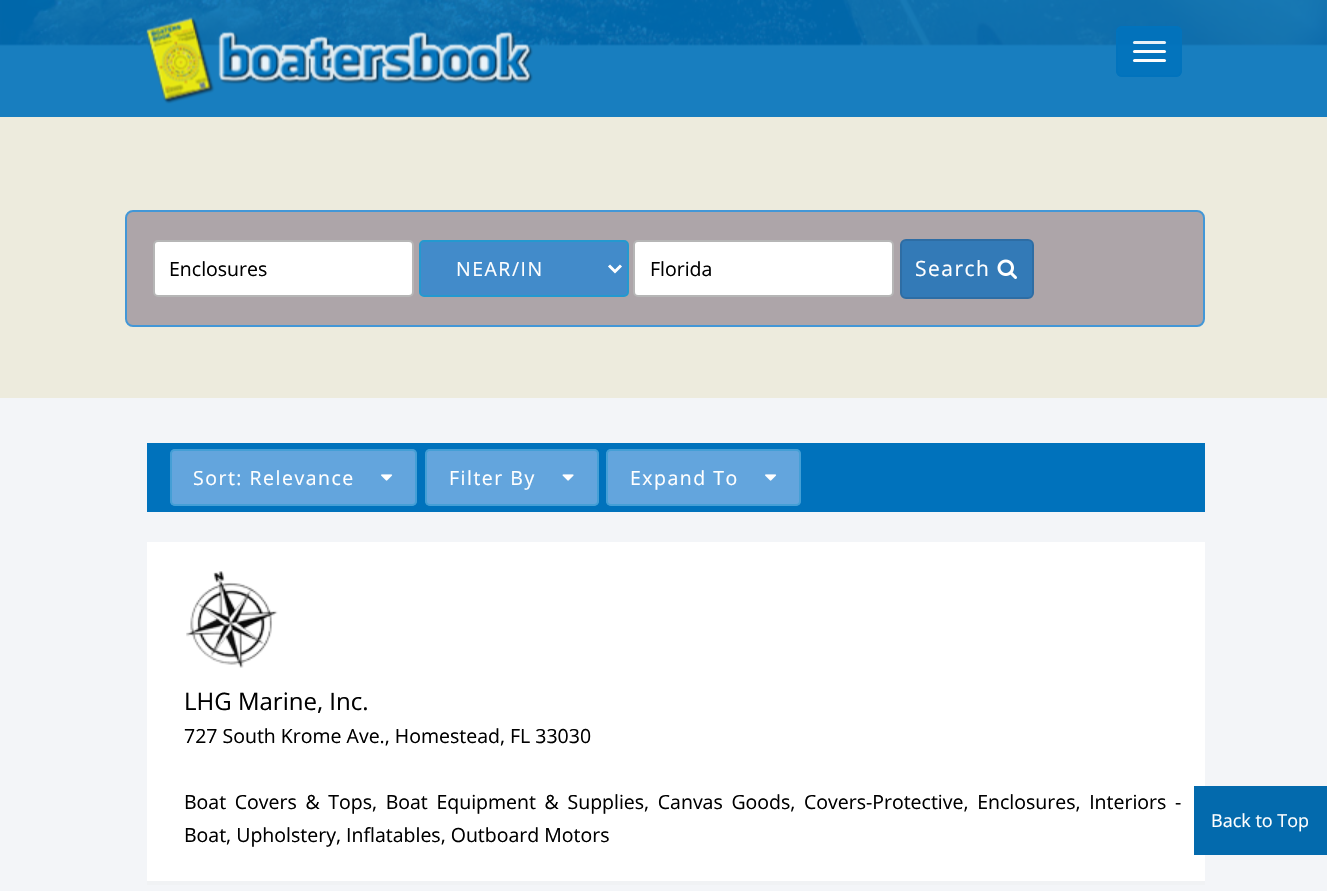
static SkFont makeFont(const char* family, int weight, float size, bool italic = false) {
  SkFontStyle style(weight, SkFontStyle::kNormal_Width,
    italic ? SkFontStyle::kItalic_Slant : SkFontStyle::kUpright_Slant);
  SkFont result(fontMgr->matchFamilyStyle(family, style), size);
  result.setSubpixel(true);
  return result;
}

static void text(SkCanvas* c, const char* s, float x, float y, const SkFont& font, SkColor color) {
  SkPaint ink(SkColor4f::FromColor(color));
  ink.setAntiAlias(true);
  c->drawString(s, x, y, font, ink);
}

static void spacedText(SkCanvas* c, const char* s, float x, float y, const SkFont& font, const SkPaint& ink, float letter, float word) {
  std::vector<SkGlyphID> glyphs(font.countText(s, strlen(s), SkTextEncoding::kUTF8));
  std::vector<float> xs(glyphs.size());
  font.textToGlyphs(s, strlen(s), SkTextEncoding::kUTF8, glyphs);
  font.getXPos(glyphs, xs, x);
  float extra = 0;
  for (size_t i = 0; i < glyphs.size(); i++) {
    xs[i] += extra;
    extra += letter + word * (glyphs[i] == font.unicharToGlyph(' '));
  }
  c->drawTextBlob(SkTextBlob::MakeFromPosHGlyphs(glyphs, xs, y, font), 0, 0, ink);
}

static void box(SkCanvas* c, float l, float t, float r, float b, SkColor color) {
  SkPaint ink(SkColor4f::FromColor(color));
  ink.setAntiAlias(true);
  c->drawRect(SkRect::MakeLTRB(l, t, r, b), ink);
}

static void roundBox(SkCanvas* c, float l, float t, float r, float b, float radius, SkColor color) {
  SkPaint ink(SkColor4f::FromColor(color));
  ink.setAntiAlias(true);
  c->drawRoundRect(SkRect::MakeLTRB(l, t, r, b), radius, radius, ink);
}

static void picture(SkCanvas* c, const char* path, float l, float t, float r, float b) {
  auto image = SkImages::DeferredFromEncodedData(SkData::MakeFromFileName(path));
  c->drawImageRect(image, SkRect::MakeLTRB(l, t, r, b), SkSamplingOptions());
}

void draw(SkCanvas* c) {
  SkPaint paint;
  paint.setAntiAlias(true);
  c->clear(0xffedebdd);
  box(c, 0, 0, 1327, 117, 0xff187ebf);
  picture(c, "img_02.png", 0, 0, 1327, 47);
  picture(c, "img_01.png", 146, 17, 533, 104);
  roundBox(c, 1116, 26, 1182, 77, 6, 0xe60072bc);
  paint.setStyle(SkPaint::kStroke_Style);
  paint.setStrokeWidth(2);
  paint.setColor(0xe60072bc);
  c->drawRoundRect(SkRect::MakeLTRB(1117, 27, 1181, 76), 5, 5, paint);
  roundBox(c, 1133, 41, 1166, 44, 1.5f, 0xffe6f1f8);
  roundBox(c, 1133, 50, 1166, 53, 1.5f, 0xfffdfdfc);
  roundBox(c, 1133, 59, 1166, 62, 1.5f, 0xfffdfdfc);
  paint.setStyle(SkPaint::kFill_Style);
  paint.setColor(0xffada5a9);
  c->drawRoundRect(SkRect::MakeLTRB(126, 211, 1204, 326), 7, 7, paint);
  paint.setStyle(SkPaint::kStroke_Style);
  paint.setColor(0xff4297d7);
  c->drawRoundRect(SkRect::MakeLTRB(126, 211, 1204, 326), 7, 7, paint);
  paint.setStyle(SkPaint::kFill_Style);
  paint.setColor(0xffffffff);
  c->drawRoundRect(SkRect::MakeLTRB(154, 241, 413, 296), 4, 4, paint);
  paint.setStyle(SkPaint::kStroke_Style);
  paint.setColor(0xffb6b6b6);
  c->drawRoundRect(SkRect::MakeLTRB(154, 241, 413, 296), 4, 4, paint);
  SkFont face1 = makeFont("Open Sans", 400, 19.5f);
  text(c, "Enclosures", 169, 276, face1, 0xff000000);
  paint.setStyle(SkPaint::kFill_Style);
  paint.setColor(0xff428bca);
  c->drawRoundRect(SkRect::MakeLTRB(420, 241, 628, 296), 4, 4, paint);
  paint.setStyle(SkPaint::kStroke_Style);
  paint.setColor(0xff2499cf);
  c->drawRoundRect(SkRect::MakeLTRB(420, 241, 628, 296), 4, 4, paint);
  paint.setStrokeWidth(3);
  paint.setColor(0xffffffff);
  c->drawPath(SkPathBuilder().moveTo(609, 265.5f).lineTo(615, 271.5f).lineTo(621, 265.5f).detach(), paint);
  paint.setStyle(SkPaint::kFill_Style);
  spacedText(c, "NEAR/IN", 456, 276, face1, paint, 1.5f, 0);
  c->drawRoundRect(SkRect::MakeLTRB(634, 241, 893, 296), 4, 4, paint);
  paint.setStyle(SkPaint::kStroke_Style);
  paint.setStrokeWidth(2);
  paint.setColor(0xffb6b6b6);
  c->drawRoundRect(SkRect::MakeLTRB(634, 241, 893, 296), 4, 4, paint);
  text(c, "Florida", 650, 276, face1, 0xff000000);
  paint.setStyle(SkPaint::kFill_Style);
  paint.setColor(0xff337ab7);
  c->drawRoundRect(SkRect::MakeLTRB(901, 240, 1033, 298), 5, 5, paint);
  paint.setStyle(SkPaint::kStroke_Style);
  paint.setColor(0xff2e6da4);
  c->drawRoundRect(SkRect::MakeLTRB(901, 240, 1033, 298), 5, 5, paint);
  SkFont face2 = makeFont("Open Sans", 400, 21);
  paint.setStyle(SkPaint::kFill_Style);
  paint.setColor(0xffffffff);
  spacedText(c, "Search", 915, 276, face2, paint, 1.5f, 0);
  picture(c, "img_03.png", 997, 259, 1017, 279);
  box(c, 0, 398, 1327, 891, 0xfff3f5f8);
  box(c, 147, 443, 1205, 512, 0xff0072bc);
  roundBox(c, 170, 449, 417, 506, 5, 0xff63a5dd);
  paint.setStyle(SkPaint::kStroke_Style);
  paint.setColor(0x802499cf);
  c->drawRoundRect(SkRect::MakeLTRB(171, 450, 416, 505), 4, 4, paint);
  paint.setStyle(SkPaint::kFill_Style);
  paint.setColor(0xffffffff);
  spacedText(c, "Sort: Relevance", 193, 485, face1, paint, 1.5f, 0);
  picture(c, "img_04.png", 381, 474, 393, 481);
  roundBox(c, 425, 449, 599, 506, 5, 0xff63a5dd);
  paint.setStyle(SkPaint::kStroke_Style);
  paint.setColor(0x802499cf);
  c->drawRoundRect(SkRect::MakeLTRB(426, 450, 598, 505), 4, 4, paint);
  paint.setStyle(SkPaint::kFill_Style);
  paint.setColor(0xffffffff);
  spacedText(c, "Filter By", 449, 485, face1, paint, 1.5f, 0);
  picture(c, "img_05.png", 562, 474, 574, 481);
  roundBox(c, 606, 449, 801, 506, 5, 0xff63a5dd);
  paint.setStyle(SkPaint::kStroke_Style);
  paint.setColor(0x802499cf);
  c->drawRoundRect(SkRect::MakeLTRB(607, 450, 800, 505), 4, 4, paint);
  paint.setStyle(SkPaint::kFill_Style);
  paint.setColor(0xffffffff);
  spacedText(c, "Expand To", 630, 485, face1, paint, 1.5f, 0);
  picture(c, "img_04.png", 765, 474, 777, 481);
  paint.setColor(0xfff0f2f4);
  c->drawPath(SkPathBuilder().moveTo(147, 880).lineTo(147, 885).lineTo(1205, 885).lineTo(1205, 546).lineTo(1204, 546).lineTo(1204, 880).close().detach(), paint);
  box(c, 147, 542, 1205, 881, 0xffffffff);
  picture(c, "img_06.png", 186, 571, 278, 668);
  SkFont face3 = makeFont("Open Sans", 400, 24);
  text(c, "LHG Marine, Inc.", 184, 710, face3, 0xff000000);
  text(c, "727 South Krome Ave., Homestead, FL 33030", 184, 743, face1, 0xff000000);
  paint.setColor(0xff000000);
  spacedText(c, "Boat Covers & Tops, Boat Equipment & Supplies, Canvas Goods, Covers-Protective, Enclosures, Interiors -", 184, 809, face1, paint, 0, 3.6f);
  text(c, "Boat, Upholstery, Inflatables, Outboard Motors", 184, 842, face1, 0xff000000);
  box(c, 1194, 786, 1327, 855, 0xff036aad);
  SkFont face4 = makeFont("Open Sans", 400, 18);
  text(c, "Back to Top", 1211, 827, face4, 0xffffffff);
}
